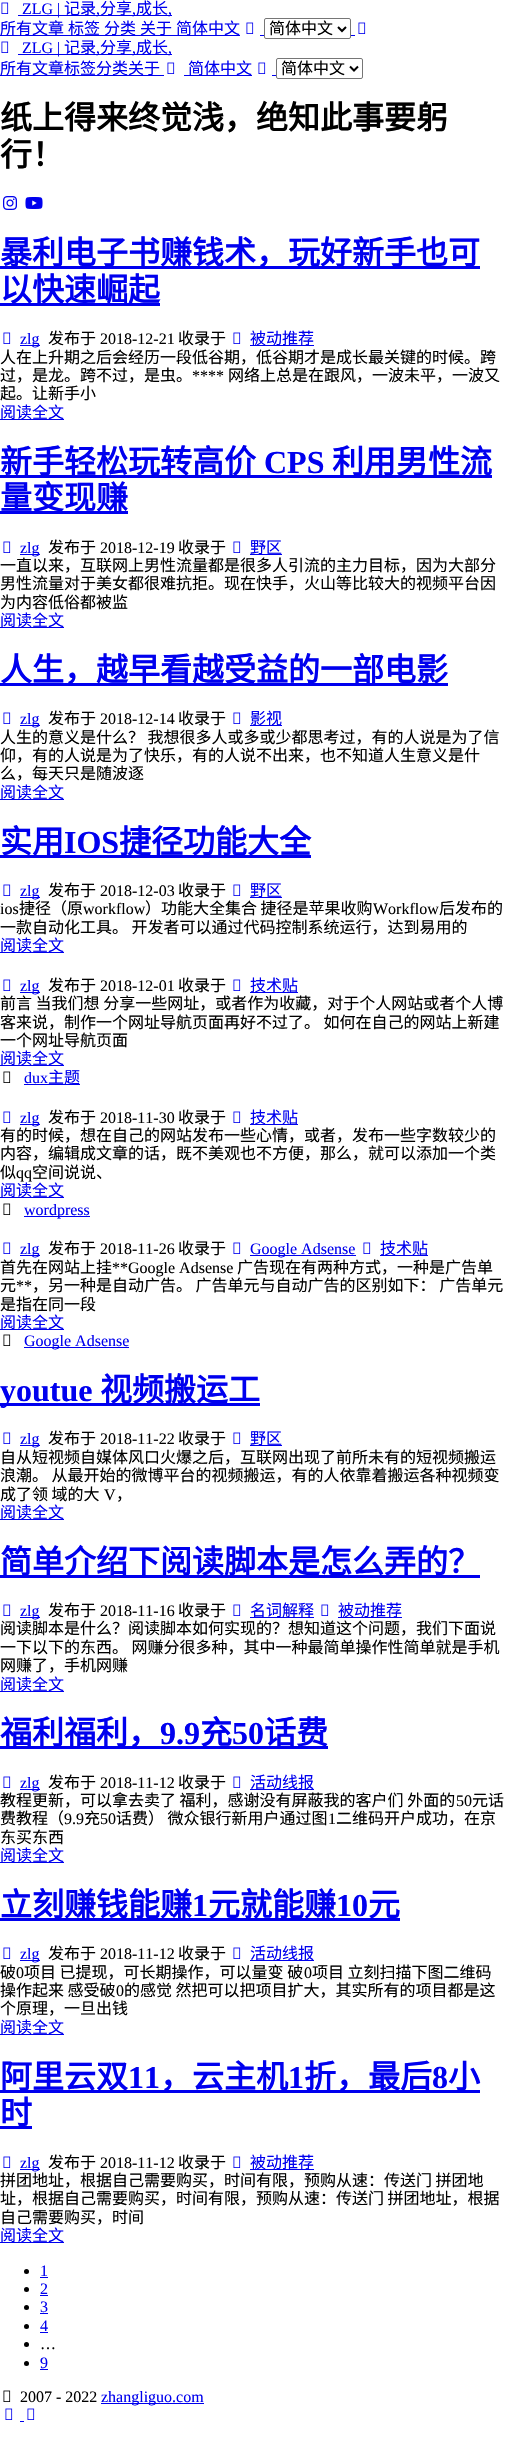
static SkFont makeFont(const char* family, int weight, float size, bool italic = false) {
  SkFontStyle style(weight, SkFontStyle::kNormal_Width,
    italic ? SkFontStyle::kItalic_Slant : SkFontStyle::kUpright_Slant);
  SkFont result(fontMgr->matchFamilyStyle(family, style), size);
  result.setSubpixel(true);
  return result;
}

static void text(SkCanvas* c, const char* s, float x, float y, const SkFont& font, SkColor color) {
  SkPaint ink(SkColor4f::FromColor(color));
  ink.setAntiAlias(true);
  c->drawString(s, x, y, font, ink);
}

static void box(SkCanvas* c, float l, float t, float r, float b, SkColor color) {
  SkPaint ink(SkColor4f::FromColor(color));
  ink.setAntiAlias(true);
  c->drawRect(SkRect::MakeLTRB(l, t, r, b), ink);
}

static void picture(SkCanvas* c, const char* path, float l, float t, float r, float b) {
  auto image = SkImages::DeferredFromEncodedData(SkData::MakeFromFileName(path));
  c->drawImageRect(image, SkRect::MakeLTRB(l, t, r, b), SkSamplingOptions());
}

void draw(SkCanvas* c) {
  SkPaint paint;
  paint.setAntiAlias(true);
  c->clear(0xffffffff);
  picture(c, "img_01.png", 1, 2, 9, 14);
  box(c, 18, 15, 172, 16, 0xff0000ee);
  SkFont face1 = makeFont("Liberation Serif", 400, 16);
  text(c, "ZLG |", 22, 14, face1, 0xff0000ee);
  SkFont face2 = makeFont("Noto Sans CJK SC", 400, 16);
  text(c, "记录", 64, 14, face2, 0xff0000ee);
  text(c, ",", 96, 14, face1, 0xff0000ee);
  text(c, "分享", 100, 14, face2, 0xff0000ee);
  text(c, ",", 132, 14, face1, 0xff0000ee);
  text(c, "成长", 136, 14, face2, 0xff0000ee);
  text(c, ",", 168, 14, face1, 0xff0000ee);
  box(c, 0, 35, 240, 36, 0xff0000ee);
  text(c, "所有文章", 0, 34, face2, 0xff0000ee);
  text(c, "标签", 68, 34, face2, 0xff0000ee);
  text(c, "分类", 104, 34, face2, 0xff0000ee);
  text(c, "关于", 140, 34, face2, 0xff0000ee);
  text(c, "简体中文", 176, 34, face2, 0xff0000ee);
  picture(c, "img_01.png", 246, 22, 254, 34);
  paint.setStyle(SkPaint::kStroke_Style);
  paint.setStrokeWidth(1);
  paint.setColor(0xff767676);
  c->drawRoundRect(SkRect::MakeLTRB(264.5f, 18.5f, 350.5f, 38.5f), 1.5f, 1.5f, paint);
  paint.setStrokeWidth(2);
  paint.setColor(0xff000000);
  c->drawPath(SkPathBuilder().moveTo(338, 27).lineTo(342, 31).lineTo(346, 27).detach(), paint);
  text(c, "简体中文", 269, 34, face2, 0xff000000);
  box(c, 260, 35, 264, 36, 0xff0000ee);
  box(c, 351, 35, 355, 36, 0xff0000ee);
  picture(c, "img_01.png", 358, 22, 366, 34);
  picture(c, "img_01.png", 1, 41, 9, 53);
  box(c, 18, 54, 172, 55, 0xff0000ee);
  text(c, "ZLG |", 22, 53, face1, 0xff0000ee);
  text(c, "记录", 64, 53, face2, 0xff0000ee);
  text(c, ",", 96, 53, face1, 0xff0000ee);
  text(c, "分享", 100, 53, face2, 0xff0000ee);
  text(c, ",", 132, 53, face1, 0xff0000ee);
  text(c, "成长", 136, 53, face2, 0xff0000ee);
  text(c, ",", 168, 53, face1, 0xff0000ee);
  box(c, 0, 75, 164, 76, 0xff0000ee);
  text(c, "所有文章标签分类关于", 0, 74, face2, 0xff0000ee);
  box(c, 184, 75, 252, 76, 0xff0000ee);
  text(c, "简体中文", 188, 74, face2, 0xff0000ee);
  picture(c, "img_01.png", 258, 62, 266, 74);
  paint.setStrokeWidth(1);
  paint.setColor(0xff767676);
  c->drawRoundRect(SkRect::MakeLTRB(276.5f, 58.5f, 362.5f, 78.5f), 1.5f, 1.5f, paint);
  paint.setStrokeWidth(2);
  paint.setColor(0xff000000);
  c->drawPath(SkPathBuilder().moveTo(350, 66.5f).lineTo(354, 70.5f).lineTo(358, 66.5f).detach(), paint);
  text(c, "简体中文", 281, 74, face2, 0xff000000);
  box(c, 272, 75, 276, 76, 0xff0000ee);
  picture(c, "img_01.png", 167, 62, 175, 74);
  SkFont face3 = makeFont("Noto Sans CJK SC", 700, 32);
  text(c, "纸上得来终觉浅，绝知此事要躬", 0, 129, face3, 0xff000000);
  text(c, "行！", 0, 166, face3, 0xff000000);
  picture(c, "img_02.png", 3, 196, 17, 210);
  picture(c, "img_03.png", 25, 197, 43, 209);
  box(c, 0, 266, 480, 269, 0xff0000ee);
  text(c, "暴利电子书赚钱术，玩好新手也可", 0, 264, face3, 0xff0000ee);
  box(c, 0, 303, 160, 306, 0xff0000ee);
  text(c, "以快速崛起", 0, 301, face3, 0xff0000ee);
  picture(c, "img_01.png", 3, 332, 11, 344);
  box(c, 20, 345, 40, 346, 0xff0000ee);
  text(c, "zlg", 20, 344, face1, 0xff0000ee);
  text(c, "发布于", 48, 344, face2, 0xff000000);
  text(c, "2018-12-21", 100, 344, face1, 0xff000000);
  text(c, "收录于", 178, 344, face2, 0xff000000);
  picture(c, "img_01.png", 233, 332, 241, 344);
  box(c, 250, 345, 314, 346, 0xff0000ee);
  text(c, "被动推荐", 250, 344, face2, 0xff0000ee);
  text(c, "人在上升期之后会经历一段低谷期，低谷期才是成长最关键的时候。跨", 0, 363, face2, 0xff000000);
  text(c, "过，是龙。跨不过，是虫。", 0, 381, face2, 0xff000000);
  text(c, "****", 192, 381, face1, 0xff000000);
  text(c, "网络上总是在跟风，一波未平，一波又", 228, 381, face2, 0xff000000);
  text(c, "起。让新手小", 0, 399, face2, 0xff000000);
  box(c, 0, 419, 64, 420, 0xff0000ee);
  text(c, "阅读全文", 0, 418, face2, 0xff0000ee);
  box(c, 0, 475, 492, 478, 0xff0000ee);
  text(c, "新手轻松玩转高价", 0, 473, face3, 0xff0000ee);
  SkFont face4 = makeFont("Liberation Serif", 700, 32);
  text(c, "CPS", 264, 473, face4, 0xff0000ee);
  text(c, "利用男性流", 332, 473, face3, 0xff0000ee);
  box(c, 0, 511, 128, 514, 0xff0000ee);
  text(c, "量变现赚", 0, 509, face3, 0xff0000ee);
  picture(c, "img_01.png", 3, 541, 11, 553);
  box(c, 20, 554, 40, 555, 0xff0000ee);
  text(c, "zlg", 20, 553, face1, 0xff0000ee);
  text(c, "发布于", 48, 553, face2, 0xff000000);
  text(c, "2018-12-19", 100, 553, face1, 0xff000000);
  text(c, "收录于", 178, 553, face2, 0xff000000);
  picture(c, "img_01.png", 233, 541, 241, 553);
  box(c, 250, 554, 282, 555, 0xff0000ee);
  text(c, "野区", 250, 553, face2, 0xff0000ee);
  text(c, "一直以来，互联网上男性流量都是很多人引流的主力目标，因为大部分", 0, 571, face2, 0xff000000);
  text(c, "男性流量对于美女都很难抗拒。现在快手，火山等比较大的视频平台因", 0, 589, face2, 0xff000000);
  text(c, "为内容低俗都被监", 0, 608, face2, 0xff000000);
  box(c, 0, 627, 64, 628, 0xff0000ee);
  text(c, "阅读全文", 0, 626, face2, 0xff0000ee);
  box(c, 0, 683, 448, 686, 0xff0000ee);
  text(c, "人生，越早看越受益的一部电影", 0, 681, face3, 0xff0000ee);
  picture(c, "img_01.png", 3, 712, 11, 724);
  box(c, 20, 725, 40, 726, 0xff0000ee);
  text(c, "zlg", 20, 724, face1, 0xff0000ee);
  text(c, "发布于", 48, 724, face2, 0xff000000);
  text(c, "2018-12-14", 100, 724, face1, 0xff000000);
  text(c, "收录于", 178, 724, face2, 0xff000000);
  picture(c, "img_01.png", 233, 712, 241, 724);
  box(c, 250, 725, 282, 726, 0xff0000ee);
  text(c, "影视", 250, 724, face2, 0xff0000ee);
  text(c, "人生的意义是什么？ 我想很多人或多或少都思考过，有的人说是为了信", 0, 743, face2, 0xff000000);
  text(c, "仰，有的人说是为了快乐，有的人说不出来，也不知道人生意义是什", 0, 761, face2, 0xff000000);
  text(c, "么，每天只是随波逐", 0, 779, face2, 0xff000000);
  box(c, 0, 799, 64, 800, 0xff0000ee);
  text(c, "阅读全文", 0, 798, face2, 0xff0000ee);
  box(c, 0, 855, 311, 858, 0xff0000ee);
  text(c, "实用", 0, 853, face3, 0xff0000ee);
  text(c, "IOS", 64, 853, face4, 0xff0000ee);
  text(c, "捷径功能大全", 119, 853, face3, 0xff0000ee);
  picture(c, "img_01.png", 3, 884, 11, 896);
  box(c, 20, 897, 40, 898, 0xff0000ee);
  text(c, "zlg", 20, 896, face1, 0xff0000ee);
  text(c, "发布于", 48, 896, face2, 0xff000000);
  text(c, "2018-12-03", 100, 896, face1, 0xff000000);
  text(c, "收录于", 178, 896, face2, 0xff000000);
  picture(c, "img_01.png", 233, 884, 241, 896);
  box(c, 250, 897, 282, 898, 0xff0000ee);
  text(c, "野区", 250, 896, face2, 0xff0000ee);
  text(c, "ios", 0, 914, face1, 0xff000000);
  text(c, "捷径（原", 19, 914, face2, 0xff000000);
  text(c, "workflow", 83, 914, face1, 0xff000000);
  text(c, "）功能大全集合 捷径是苹果收购", 145, 914, face2, 0xff000000);
  text(c, "Workflow", 373, 914, face1, 0xff000000);
  text(c, "后发布的", 439, 914, face2, 0xff000000);
  text(c, "一款自动化工具。 开发者可以通过代码控制系统运行，达到易用的", 0, 933, face2, 0xff000000);
  box(c, 0, 952, 64, 953, 0xff0000ee);
  text(c, "阅读全文", 0, 951, face2, 0xff0000ee);
  picture(c, "img_01.png", 3, 979, 11, 991);
  box(c, 20, 992, 40, 993, 0xff0000ee);
  text(c, "zlg", 20, 991, face1, 0xff0000ee);
  text(c, "发布于", 48, 991, face2, 0xff000000);
  text(c, "2018-12-01", 100, 991, face1, 0xff000000);
  text(c, "收录于", 178, 991, face2, 0xff000000);
  picture(c, "img_01.png", 233, 979, 241, 991);
  box(c, 250, 992, 298, 993, 0xff0000ee);
  text(c, "技术贴", 250, 991, face2, 0xff0000ee);
  text(c, "前言 当我们想 分享一些网址，或者作为收藏，对于个人网站或者个人博", 0, 1009, face2, 0xff000000);
  text(c, "客来说，制作一个网址导航页面再好不过了。 如何在自己的网站上新建", 0, 1028, face2, 0xff000000);
  text(c, "一个网址导航页面", 0, 1046, face2, 0xff000000);
  box(c, 0, 1065, 64, 1066, 0xff0000ee);
  text(c, "阅读全文", 0, 1064, face2, 0xff0000ee);
  picture(c, "img_04.png", 3, 1071, 11, 1083);
  text(c, "dux", 24, 1083, face1, 0xff0000ee);
  box(c, 24, 1084, 80, 1085, 0xff0000ee);
  text(c, "主题", 48, 1083, face2, 0xff0000ee);
  picture(c, "img_01.png", 3, 1111, 11, 1123);
  box(c, 20, 1124, 40, 1125, 0xff0000ee);
  text(c, "zlg", 20, 1123, face1, 0xff0000ee);
  text(c, "发布于", 48, 1123, face2, 0xff000000);
  text(c, "2018-11-30", 100, 1123, face1, 0xff000000);
  text(c, "收录于", 178, 1123, face2, 0xff000000);
  picture(c, "img_01.png", 233, 1111, 241, 1123);
  box(c, 250, 1124, 298, 1125, 0xff0000ee);
  text(c, "技术贴", 250, 1123, face2, 0xff0000ee);
  text(c, "有的时候，想在自己的网站发布一些心情，或者，发布一些字数较少的", 0, 1141, face2, 0xff000000);
  text(c, "内容，编辑成文章的话，既不美观也不方便，那么，就可以添加一个类", 0, 1159, face2, 0xff000000);
  text(c, "似", 0, 1178, face2, 0xff000000);
  text(c, "qq", 16, 1178, face1, 0xff000000);
  text(c, "空间说说、", 32, 1178, face2, 0xff000000);
  box(c, 0, 1197, 64, 1198, 0xff0000ee);
  text(c, "阅读全文", 0, 1196, face2, 0xff0000ee);
  picture(c, "img_04.png", 3, 1203, 11, 1215);
  box(c, 24, 1216, 90, 1217, 0xff0000ee);
  text(c, "wordpress", 24, 1215, face1, 0xff0000ee);
  picture(c, "img_01.png", 3, 1242, 11, 1254);
  box(c, 20, 1255, 40, 1256, 0xff0000ee);
  text(c, "zlg", 20, 1254, face1, 0xff0000ee);
  text(c, "发布于", 48, 1254, face2, 0xff000000);
  text(c, "2018-11-26", 100, 1254, face1, 0xff000000);
  text(c, "收录于", 178, 1254, face2, 0xff000000);
  picture(c, "img_01.png", 233, 1242, 241, 1254);
  box(c, 250, 1255, 356, 1256, 0xff0000ee);
  text(c, "Google Adsense", 250, 1254, face1, 0xff0000ee);
  picture(c, "img_01.png", 363, 1242, 371, 1254);
  box(c, 380, 1255, 428, 1256, 0xff0000ee);
  text(c, "技术贴", 380, 1254, face2, 0xff0000ee);
  text(c, "首先在网站上挂", 0, 1273, face2, 0xff000000);
  text(c, "**Google Adsense", 112, 1273, face1, 0xff000000);
  text(c, "广告现在有两种方式，一种是广告单", 237, 1273, face2, 0xff000000);
  text(c, "元", 0, 1291, face2, 0xff000000);
  text(c, "**", 16, 1291, face1, 0xff000000);
  text(c, "，另一种是自动广告。 广告单元与自动广告的区别如下： 广告单元", 32, 1291, face2, 0xff000000);
  text(c, "是指在同一段", 0, 1310, face2, 0xff000000);
  box(c, 0, 1329, 64, 1330, 0xff0000ee);
  text(c, "阅读全文", 0, 1328, face2, 0xff0000ee);
  picture(c, "img_04.png", 3, 1334, 11, 1346);
  box(c, 24, 1347, 129, 1348, 0xff0000ee);
  text(c, "Google Adsense", 24, 1346, face1, 0xff0000ee);
  box(c, 0, 1403, 260, 1406, 0xff0000ee);
  text(c, "youtue", 0, 1401, face4, 0xff0000ee);
  text(c, "视频搬运工", 100, 1401, face3, 0xff0000ee);
  picture(c, "img_01.png", 3, 1432, 11, 1444);
  box(c, 20, 1445, 40, 1446, 0xff0000ee);
  text(c, "zlg", 20, 1444, face1, 0xff0000ee);
  text(c, "发布于", 48, 1444, face2, 0xff000000);
  text(c, "2018-11-22", 100, 1444, face1, 0xff000000);
  text(c, "收录于", 178, 1444, face2, 0xff000000);
  picture(c, "img_01.png", 233, 1432, 241, 1444);
  box(c, 250, 1445, 282, 1446, 0xff0000ee);
  text(c, "野区", 250, 1444, face2, 0xff0000ee);
  text(c, "自从短视频自媒体风口火爆之后，互联网出现了前所未有的短视频搬运", 0, 1463, face2, 0xff000000);
  text(c, "浪潮。 从最开始的微博平台的视频搬运，有的人依靠着搬运各种视频变", 0, 1481, face2, 0xff000000);
  text(c, "成了领 域的大", 0, 1500, face2, 0xff000000);
  text(c, "V", 104, 1500, face1, 0xff000000);
  text(c, "，", 116, 1500, face2, 0xff000000);
  box(c, 0, 1519, 64, 1520, 0xff0000ee);
  text(c, "阅读全文", 0, 1518, face2, 0xff0000ee);
  box(c, 0, 1575, 480, 1578, 0xff0000ee);
  text(c, "简单介绍下阅读脚本是怎么弄的？", 0, 1573, face3, 0xff0000ee);
  picture(c, "img_01.png", 3, 1604, 11, 1616);
  box(c, 20, 1617, 40, 1618, 0xff0000ee);
  text(c, "zlg", 20, 1616, face1, 0xff0000ee);
  text(c, "发布于", 48, 1616, face2, 0xff000000);
  text(c, "2018-11-16", 100, 1616, face1, 0xff000000);
  text(c, "收录于", 178, 1616, face2, 0xff000000);
  picture(c, "img_01.png", 233, 1604, 241, 1616);
  box(c, 250, 1617, 314, 1618, 0xff0000ee);
  text(c, "名词解释", 250, 1616, face2, 0xff0000ee);
  picture(c, "img_01.png", 321, 1604, 329, 1616);
  box(c, 338, 1617, 402, 1618, 0xff0000ee);
  text(c, "被动推荐", 338, 1616, face2, 0xff0000ee);
  text(c, "阅读脚本是什么？阅读脚本如何实现的？想知道这个问题，我们下面说", 0, 1634, face2, 0xff000000);
  text(c, "一下以下的东西。 网赚分很多种，其中一种最简单操作性简单就是手机", 0, 1653, face2, 0xff000000);
  text(c, "网赚了，手机网赚", 0, 1671, face2, 0xff000000);
  box(c, 0, 1691, 64, 1692, 0xff0000ee);
  text(c, "阅读全文", 0, 1690, face2, 0xff0000ee);
  box(c, 0, 1746, 328, 1749, 0xff0000ee);
  text(c, "福利福利，", 0, 1744, face3, 0xff0000ee);
  text(c, "9.9", 160, 1744, face4, 0xff0000ee);
  text(c, "充", 200, 1744, face3, 0xff0000ee);
  text(c, "50", 232, 1744, face4, 0xff0000ee);
  text(c, "话费", 264, 1744, face3, 0xff0000ee);
  picture(c, "img_01.png", 3, 1776, 11, 1788);
  box(c, 20, 1789, 40, 1790, 0xff0000ee);
  text(c, "zlg", 20, 1788, face1, 0xff0000ee);
  text(c, "发布于", 48, 1788, face2, 0xff000000);
  text(c, "2018-11-12", 100, 1788, face1, 0xff000000);
  text(c, "收录于", 178, 1788, face2, 0xff000000);
  picture(c, "img_01.png", 233, 1776, 241, 1788);
  box(c, 250, 1789, 314, 1790, 0xff0000ee);
  text(c, "活动线报", 250, 1788, face2, 0xff0000ee);
  text(c, "教程更新，可以拿去卖了 福利，感谢没有屏蔽我的客户们 外面的", 0, 1806, face2, 0xff000000);
  text(c, "50", 456, 1806, face1, 0xff000000);
  text(c, "元话", 472, 1806, face2, 0xff000000);
  text(c, "费教程（", 0, 1824, face2, 0xff000000);
  text(c, "9.9", 64, 1824, face1, 0xff000000);
  text(c, "充", 84, 1824, face2, 0xff000000);
  text(c, "50", 100, 1824, face1, 0xff000000);
  text(c, "话费） 微众银行新用户通过图", 116, 1824, face2, 0xff000000);
  text(c, "1", 328, 1824, face1, 0xff000000);
  text(c, "二维码开户成功，在京", 336, 1824, face2, 0xff000000);
  text(c, "东买东西", 0, 1843, face2, 0xff000000);
  box(c, 0, 1862, 64, 1863, 0xff0000ee);
  text(c, "阅读全文", 0, 1861, face2, 0xff0000ee);
  box(c, 0, 1918, 400, 1921, 0xff0000ee);
  text(c, "立刻赚钱能赚", 0, 1916, face3, 0xff0000ee);
  text(c, "1", 192, 1916, face4, 0xff0000ee);
  text(c, "元就能赚", 208, 1916, face3, 0xff0000ee);
  text(c, "10", 336, 1916, face4, 0xff0000ee);
  text(c, "元", 368, 1916, face3, 0xff0000ee);
  picture(c, "img_01.png", 3, 1947, 11, 1959);
  box(c, 20, 1960, 40, 1961, 0xff0000ee);
  text(c, "zlg", 20, 1959, face1, 0xff0000ee);
  text(c, "发布于", 48, 1959, face2, 0xff000000);
  text(c, "2018-11-12", 100, 1959, face1, 0xff000000);
  text(c, "收录于", 178, 1959, face2, 0xff000000);
  picture(c, "img_01.png", 233, 1947, 241, 1959);
  box(c, 250, 1960, 314, 1961, 0xff0000ee);
  text(c, "活动线报", 250, 1959, face2, 0xff0000ee);
  text(c, "破", 0, 1978, face2, 0xff000000);
  text(c, "0", 16, 1978, face1, 0xff000000);
  text(c, "项目 已提现，可长期操作，可以量变 破", 24, 1978, face2, 0xff000000);
  text(c, "0", 304, 1978, face1, 0xff000000);
  text(c, "项目 立刻扫描下图二维码", 312, 1978, face2, 0xff000000);
  text(c, "操作起来 感受破", 0, 1996, face2, 0xff000000);
  text(c, "0", 116, 1996, face1, 0xff000000);
  text(c, "的感觉 然把可以把项目扩大，其实所有的项目都是这", 124, 1996, face2, 0xff000000);
  text(c, "个原理，一旦出钱", 0, 2014, face2, 0xff000000);
  box(c, 0, 2034, 64, 2035, 0xff0000ee);
  text(c, "阅读全文", 0, 2033, face2, 0xff0000ee);
  box(c, 0, 2090, 480, 2093, 0xff0000ee);
  text(c, "阿里云双", 0, 2088, face3, 0xff0000ee);
  text(c, "11", 128, 2088, face4, 0xff0000ee);
  text(c, "，云主机", 160, 2088, face3, 0xff0000ee);
  text(c, "1", 288, 2088, face4, 0xff0000ee);
  text(c, "折，最后", 304, 2088, face3, 0xff0000ee);
  text(c, "8", 432, 2088, face4, 0xff0000ee);
  text(c, "小", 448, 2088, face3, 0xff0000ee);
  box(c, 0, 2126, 32, 2129, 0xff0000ee);
  text(c, "时", 0, 2124, face3, 0xff0000ee);
  picture(c, "img_01.png", 3, 2156, 11, 2168);
  box(c, 20, 2169, 40, 2170, 0xff0000ee);
  text(c, "zlg", 20, 2168, face1, 0xff0000ee);
  text(c, "发布于", 48, 2168, face2, 0xff000000);
  text(c, "2018-11-12", 100, 2168, face1, 0xff000000);
  text(c, "收录于", 178, 2168, face2, 0xff000000);
  picture(c, "img_01.png", 233, 2156, 241, 2168);
  box(c, 250, 2169, 314, 2170, 0xff0000ee);
  text(c, "被动推荐", 250, 2168, face2, 0xff0000ee);
  text(c, "拼团地址，根据自己需要购买，时间有限，预购从速：传送门 拼团地", 0, 2186, face2, 0xff000000);
  text(c, "址，根据自己需要购买，时间有限，预购从速：传送门 拼团地址，根据", 0, 2204, face2, 0xff000000);
  text(c, "自己需要购买，时间", 0, 2223, face2, 0xff000000);
  box(c, 0, 2242, 64, 2243, 0xff0000ee);
  text(c, "阅读全文", 0, 2241, face2, 0xff0000ee);
  paint.setStyle(SkPaint::kFill_Style);
  c->drawCircle(26.5f, 2271.5f, 2.5f, paint);
  text(c, "1", 40, 2276, face1, 0xff0000ee);
  box(c, 40, 2277, 48, 2278, 0xff0000ee);
  c->drawCircle(26.5f, 2289.5f, 2.5f, paint);
  text(c, "2", 40, 2294, face1, 0xff0000ee);
  box(c, 40, 2295, 48, 2296, 0xff0000ee);
  c->drawCircle(26.5f, 2307.5f, 2.5f, paint);
  text(c, "3", 40, 2312, face1, 0xff0000ee);
  box(c, 40, 2313, 48, 2314, 0xff0000ee);
  c->drawCircle(26.5f, 2326.5f, 2.5f, paint);
  text(c, "4", 40, 2331, face1, 0xff0000ee);
  box(c, 40, 2332, 48, 2333, 0xff0000ee);
  c->drawCircle(26.5f, 2344.5f, 2.5f, paint);
  text(c, "…", 40, 2349, face1, 0xff000000);
  c->drawCircle(26.5f, 2363.5f, 2.5f, paint);
  text(c, "9", 40, 2368, face1, 0xff0000ee);
  box(c, 40, 2369, 48, 2370, 0xff0000ee);
  picture(c, "img_04.png", 3, 2390, 11, 2402);
  text(c, "2007 - 2022", 20, 2402, face1, 0xff000000);
  box(c, 101, 2403, 204, 2404, 0xff0000ee);
  text(c, "zhangliguo.com", 101, 2402, face1, 0xff0000ee);
  picture(c, "img_01.png", 5, 2408, 13, 2420);
  box(c, 20, 2421, 24, 2422, 0xff0000ee);
  picture(c, "img_01.png", 27, 2408, 35, 2420);
}
